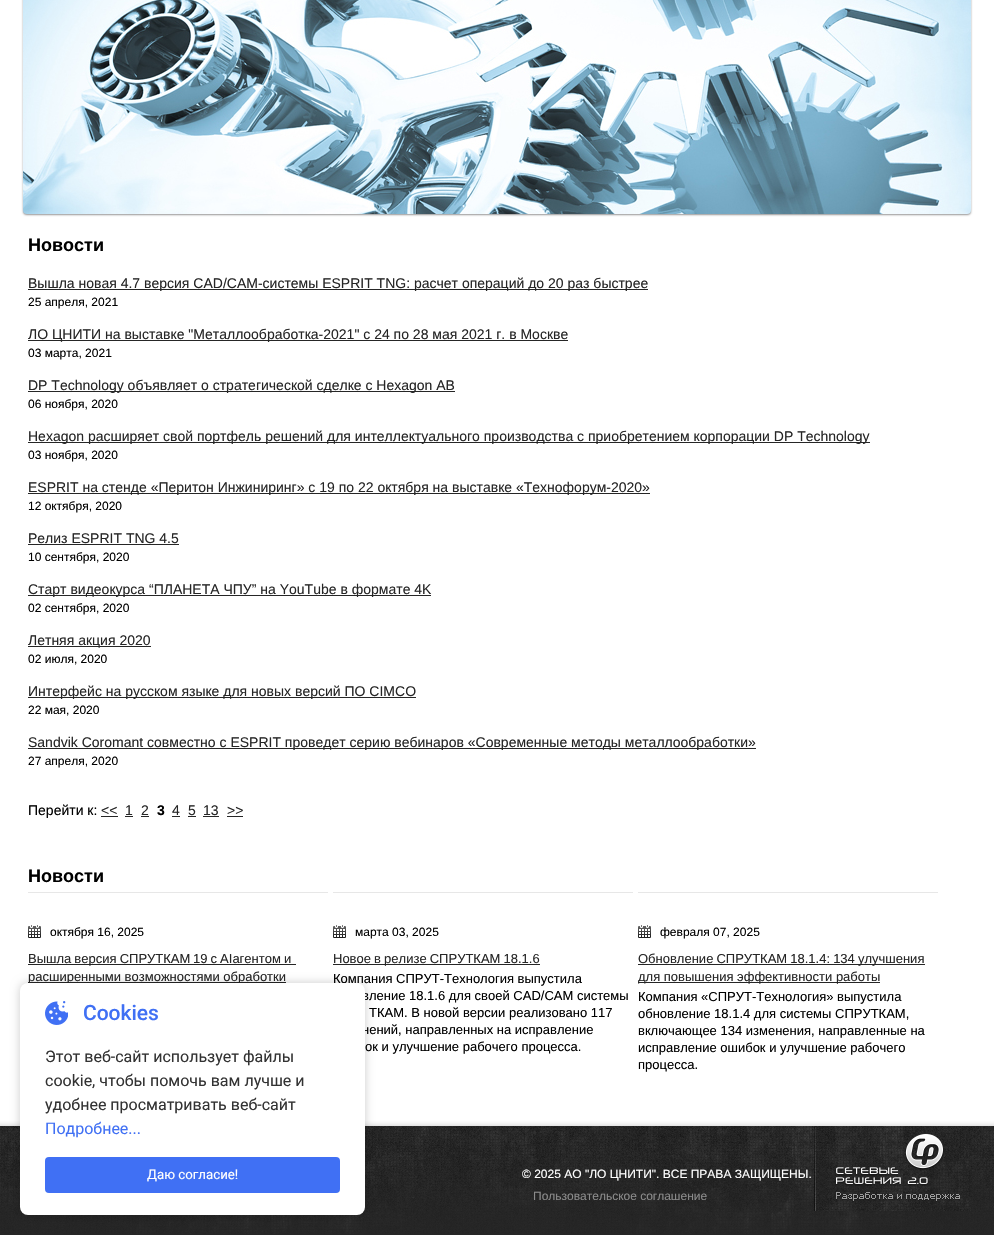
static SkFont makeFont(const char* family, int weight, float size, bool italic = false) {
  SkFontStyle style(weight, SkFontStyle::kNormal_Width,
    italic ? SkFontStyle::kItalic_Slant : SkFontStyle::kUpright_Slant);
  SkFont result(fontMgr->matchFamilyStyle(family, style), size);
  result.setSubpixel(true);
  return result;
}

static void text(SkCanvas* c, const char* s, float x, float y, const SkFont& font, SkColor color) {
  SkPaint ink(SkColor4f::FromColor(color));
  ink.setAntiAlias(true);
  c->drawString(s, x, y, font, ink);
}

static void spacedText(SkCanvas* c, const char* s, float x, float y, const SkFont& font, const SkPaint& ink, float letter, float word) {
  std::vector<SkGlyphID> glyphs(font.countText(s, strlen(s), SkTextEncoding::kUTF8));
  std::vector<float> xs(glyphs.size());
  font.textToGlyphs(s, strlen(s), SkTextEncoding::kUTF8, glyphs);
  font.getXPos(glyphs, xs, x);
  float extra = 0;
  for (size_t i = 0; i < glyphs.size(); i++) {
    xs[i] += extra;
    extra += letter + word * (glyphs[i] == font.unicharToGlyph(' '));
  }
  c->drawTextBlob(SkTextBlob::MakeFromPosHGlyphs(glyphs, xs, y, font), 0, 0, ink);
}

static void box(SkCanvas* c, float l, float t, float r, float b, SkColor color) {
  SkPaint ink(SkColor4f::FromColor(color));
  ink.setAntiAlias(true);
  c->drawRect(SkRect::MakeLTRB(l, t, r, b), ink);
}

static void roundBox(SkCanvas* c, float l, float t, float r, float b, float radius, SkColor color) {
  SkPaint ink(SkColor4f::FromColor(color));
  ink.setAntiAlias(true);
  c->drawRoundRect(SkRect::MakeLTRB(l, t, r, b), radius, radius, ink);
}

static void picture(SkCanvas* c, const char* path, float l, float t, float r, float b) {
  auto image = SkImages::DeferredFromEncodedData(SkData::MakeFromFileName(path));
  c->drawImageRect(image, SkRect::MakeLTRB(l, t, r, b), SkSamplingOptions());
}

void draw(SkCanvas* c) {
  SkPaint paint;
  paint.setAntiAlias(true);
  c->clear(0xffffffff);
  paint.setColor(0xff979696);
  paint.setMaskFilter(SkMaskFilter::MakeBlur(kNormal_SkBlurStyle, 1));
  c->drawRoundRect(SkRect::MakeLTRB(23, -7, 971, 215), 4, 4, paint);
  paint.setMaskFilter(nullptr);
  picture(c, "img_01.png", 23, 0, 971, 214);
  SkFont face1 = makeFont("Liberation Sans", 700, 18);
  text(c, "Новости", 28, 251, face1, 0xff000000);
  box(c, 28, 289, 648, 290, 0xff262626);
  SkFont face2 = makeFont("Liberation Sans", 400, 14);
  text(c, "Вышла новая 4.7 версия CAD/CAM-системы ESPRIT TNG: расчет операций до 20 раз быстрее", 28, 288, face2, 0xff262626);
  SkFont face3 = makeFont("Liberation Sans", 400, 12);
  text(c, "25 апреля, 2021", 28, 306, face3, 0xff000000);
  box(c, 28, 340, 568, 341, 0xff262626);
  text(c, "ЛО ЦНИТИ на выставке \"Металлообработка-2021\" c 24 по 28 мая 2021 г. в Москве", 28, 339, face2, 0xff262626);
  text(c, "03 марта, 2021", 28, 357, face3, 0xff000000);
  box(c, 28, 391, 455, 392, 0xff262626);
  text(c, "DP Technology объявляет о стратегической сделке с Hexagon AB", 28, 390, face2, 0xff262626);
  text(c, "06 ноября, 2020", 28, 408, face3, 0xff000000);
  box(c, 28, 442, 870, 443, 0xff262626);
  text(c, "Hexagon расширяет свой портфель решений для интеллектуального производства с приобретением корпорации DP Technology", 28, 441, face2, 0xff262626);
  text(c, "03 ноября, 2020", 28, 459, face3, 0xff000000);
  box(c, 28, 493, 650, 494, 0xff262626);
  text(c, "ESPRIT на стенде «Перитон Инжиниринг» с 19 по 22 октября на выставке «Технофорум-2020»", 28, 492, face2, 0xff262626);
  text(c, "12 октября, 2020", 28, 510, face3, 0xff000000);
  text(c, "Релиз ESPRIT TNG 4.5", 28, 543, face2, 0xff262626);
  box(c, 28, 544, 179, 545, 0xff262626);
  text(c, "10 сентября, 2020", 28, 561, face3, 0xff000000);
  box(c, 28, 595, 431, 596, 0xff262626);
  text(c, "Старт видеокурса “ПЛАНЕТА ЧПУ” на YouTube в формате 4K", 28, 594, face2, 0xff262626);
  text(c, "02 сентября, 2020", 28, 612, face3, 0xff000000);
  box(c, 28, 646, 151, 647, 0xff262626);
  text(c, "Летняя акция 2020", 28, 645, face2, 0xff262626);
  text(c, "02 июля, 2020", 28, 663, face3, 0xff000000);
  box(c, 28, 697, 416, 698, 0xff262626);
  text(c, "Интерфейс на русском языке для новых версий ПО CIMCO", 28, 696, face2, 0xff262626);
  text(c, "22 мая, 2020", 28, 714, face3, 0xff000000);
  box(c, 28, 748, 756, 749, 0xff262626);
  text(c, "Sandvik Coromant совместно с ESPRIT проведет серию вебинаров «Современные методы металлообработки»", 28, 747, face2, 0xff262626);
  text(c, "27 апреля, 2020", 28, 765, face3, 0xff000000);
  text(c, "Перейти к:", 28, 815, face2, 0xff000000);
  text(c, "<<", 101, 815, face2, 0xff262626);
  box(c, 101, 816, 118, 817, 0xff262626);
  text(c, "1", 125, 815, face2, 0xff262626);
  box(c, 125, 816, 133, 817, 0xff262626);
  text(c, "2", 141, 815, face2, 0xff262626);
  box(c, 141, 816, 149, 817, 0xff262626);
  SkFont face4 = makeFont("Liberation Sans", 700, 14);
  text(c, "3", 157, 815, face4, 0xff000000);
  text(c, "4", 172, 815, face2, 0xff262626);
  box(c, 172, 816, 180, 817, 0xff262626);
  text(c, "5", 188, 815, face2, 0xff262626);
  box(c, 188, 816, 196, 817, 0xff262626);
  text(c, "13", 203, 815, face2, 0xff262626);
  box(c, 203, 816, 219, 817, 0xff262626);
  text(c, ">>", 227, 815, face2, 0xff262626);
  box(c, 227, 816, 243, 817, 0xff262626);
  box(c, 28, 892, 328, 893, 0xffe7e7e7);
  text(c, "Новости", 28, 882, face1, 0xff000000);
  picture(c, "img_02.png", 28, 925, 41, 938);
  text(c, "октября 16, 2025", 50, 936, face3, 0xff000000);
  box(c, 28, 964, 296, 965, 0xff262626);
  SkFont face5 = makeFont("Liberation Sans", 400, 13);
  paint.setColor(0xff262626);
  spacedText(c, "Вышла версия СПРУТКАМ 19 с AI‑агентом и", 28, 963, face5, paint, 0, -0.5f);
  box(c, 28, 982, 286, 983, 0xff262626);
  text(c, "расширенными возможностями обработки", 28, 981, face5, 0xff262626);
  box(c, 333, 892, 633, 893, 0xffe7e7e7);
  picture(c, "img_02.png", 333, 925, 346, 938);
  text(c, "марта 03, 2025", 355, 936, face3, 0xff000000);
  box(c, 333, 964, 540, 965, 0xff262626);
  spacedText(c, "Новое в релизе СПРУТКАМ 18.1.6", 333, 963, face5, paint, 0, -0.5f);
  text(c, "Компания СПРУТ-Технология выпустила", 333, 983, face5, 0xff000000);
  text(c, "вление 18.1.6 для своей CAD/CAM системы", 362, 1000, face5, 0xff000000);
  text(c, "ТКАМ. В новой версии реализовано 117", 369, 1017, face5, 0xff000000);
  text(c, "нений, направленных на исправление", 362, 1034, face5, 0xff000000);
  text(c, "ок и улучшение рабочего процесса.", 365, 1051, face5, 0xff000000);
  box(c, 638, 892, 938, 893, 0xffe7e7e7);
  picture(c, "img_02.png", 638, 925, 651, 938);
  text(c, "февраля 07, 2025", 660, 936, face3, 0xff000000);
  box(c, 638, 964, 925, 965, 0xff262626);
  spacedText(c, "Обновление СПРУТКАМ 18.1.4: 134 улучшения", 638, 963, face5, paint, 0, -0.5f);
  box(c, 638, 982, 880, 983, 0xff262626);
  text(c, "для повышения эффективности работы", 638, 981, face5, 0xff262626);
  text(c, "Компания «СПРУТ-Технология» выпустила", 638, 1001, face5, 0xff000000);
  text(c, "обновление 18.1.4 для системы СПРУТКАМ,", 638, 1018, face5, 0xff000000);
  text(c, "включающее 134 изменения, направленные на", 638, 1035, face5, 0xff000000);
  text(c, "исправление ошибок и улучшение рабочего", 638, 1052, face5, 0xff000000);
  text(c, "процесса.", 638, 1069, face5, 0xff000000);
  picture(c, "img_04.png", 0, 1126, 994, 1234);
  picture(c, "img_05.png", 0, 1119, 994, 1126);
  paint.setColor(0x33000000);
  paint.setMaskFilter(SkMaskFilter::MakeBlur(kNormal_SkBlurStyle, 5));
  c->drawRoundRect(SkRect::MakeLTRB(20, 983, 365, 1215), 8, 8, paint);
  paint.setMaskFilter(nullptr);
  roundBox(c, 20, 983, 365, 1215, 8, 0xffffffff);
  picture(c, "img_03.png", 45, 1001, 68, 1025);
  SkFont face6 = makeFont("Roboto", 500, 21);
  text(c, "Cookies", 83, 1020, face6, 0xff4070f4);
  SkFont face7 = makeFont("Roboto", 400, 16);
  text(c, "Этот веб-сайт использует файлы", 45, 1062, face7, 0xff333333);
  text(c, "cookie, чтобы помочь вам лучше и", 45, 1086, face7, 0xff333333);
  text(c, "удобнее просматривать веб-сайт", 45, 1110, face7, 0xff333333);
  text(c, "Подробнее...", 45, 1134, face7, 0xff4070f4);
  roundBox(c, 45, 1157, 340, 1193, 4, 0xff4070f4);
  SkFont face8 = makeFont("Roboto", 400, 13.25f);
  text(c, "Даю согласие!", 147, 1179, face8, 0xffffffff);
  box(c, 0, 1234, 994, 1235, 0xff262626);
  text(c, "© 2025 АО \"ЛО ЦНИТИ\". ВСЕ ПРАВА ЗАЩИЩЕНЫ.", 522, 1178, face3, 0xffffffff);
  text(c, "Пользовательское соглашение", 533, 1200, face3, 0xff8b8b8b);
  picture(c, "img_06.png", 814, 1126, 971, 1211);
}
